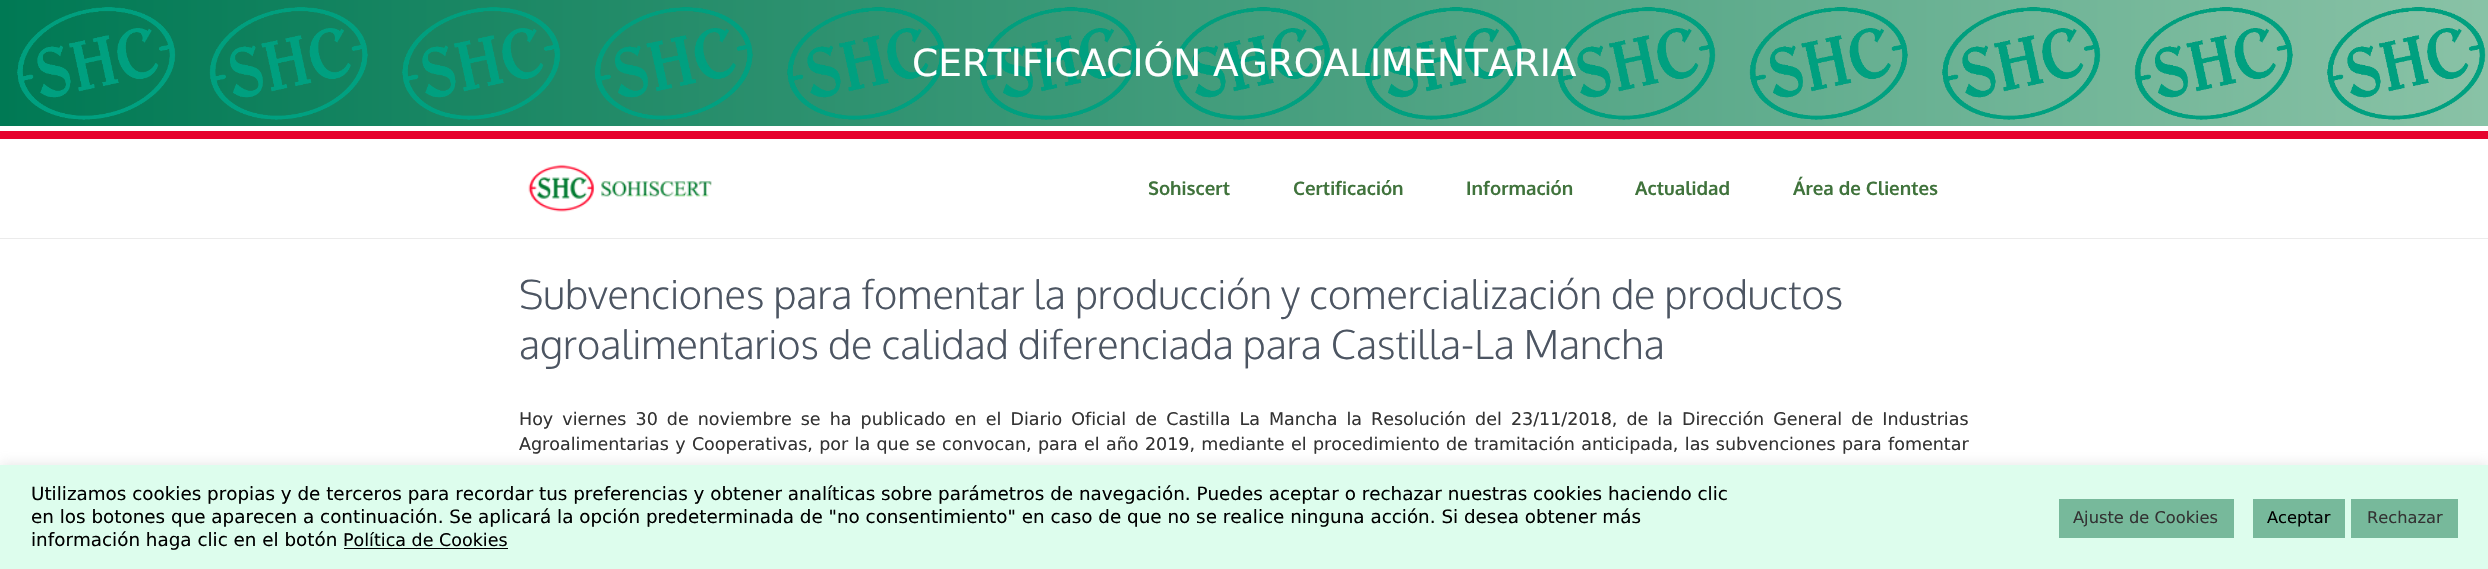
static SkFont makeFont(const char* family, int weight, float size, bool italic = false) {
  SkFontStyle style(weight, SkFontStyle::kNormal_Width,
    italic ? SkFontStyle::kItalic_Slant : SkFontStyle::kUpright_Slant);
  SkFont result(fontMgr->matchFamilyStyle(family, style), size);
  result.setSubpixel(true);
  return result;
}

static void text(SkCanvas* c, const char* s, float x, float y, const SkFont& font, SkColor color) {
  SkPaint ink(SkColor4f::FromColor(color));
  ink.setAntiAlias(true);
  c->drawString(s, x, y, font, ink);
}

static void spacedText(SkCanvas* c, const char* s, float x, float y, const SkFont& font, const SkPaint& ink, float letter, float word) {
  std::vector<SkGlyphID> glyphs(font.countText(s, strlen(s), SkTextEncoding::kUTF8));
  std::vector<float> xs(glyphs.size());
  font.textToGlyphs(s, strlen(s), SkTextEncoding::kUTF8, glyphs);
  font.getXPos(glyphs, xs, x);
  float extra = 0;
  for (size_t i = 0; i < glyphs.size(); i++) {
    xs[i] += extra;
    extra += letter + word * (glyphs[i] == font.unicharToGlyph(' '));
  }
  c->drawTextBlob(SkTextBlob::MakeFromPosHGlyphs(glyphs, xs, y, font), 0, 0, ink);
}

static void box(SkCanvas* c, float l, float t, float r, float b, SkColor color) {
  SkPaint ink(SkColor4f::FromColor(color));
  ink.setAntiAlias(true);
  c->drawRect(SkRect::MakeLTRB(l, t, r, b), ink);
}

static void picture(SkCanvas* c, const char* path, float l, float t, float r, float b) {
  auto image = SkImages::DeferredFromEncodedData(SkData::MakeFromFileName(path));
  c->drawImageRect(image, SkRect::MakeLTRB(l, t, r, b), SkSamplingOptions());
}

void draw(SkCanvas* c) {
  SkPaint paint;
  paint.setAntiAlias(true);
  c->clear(0xffffffff);
  {
    const SkColor colors[] = {0xff020024, 0xff007954, 0xff89c2a6};
    const float stops[] = {0, 0, 1};
    const SkPoint ends[] = {{0, 63}, {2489, 63}};
    paint.setShader(SkGradientShader::MakeLinear(ends, colors, stops, 3, SkTileMode::kClamp));
    paint.setAlpha(255);
  }
  c->drawRect(SkRect::MakeLTRB(0, 0, 2488, 126), paint);
  picture(c, "img_01.png", 17, 7, 2486, 120);
  SkFont face1 = makeFont("DejaVu Sans", 400, 37.5f);
  text(c, "CERTIFICACIÓN AGROALIMENTARIA", 912, 76, face1, 0xffffffff);
  box(c, 0, 131, 2488, 139, 0xffe6022c);
  box(c, 0, 238, 2488, 239, 0xffebebeb);
  picture(c, "img_02.png", 528, 164, 712, 212);
  SkFont face2 = makeFont("Oxygen", 700, 18.75f);
  text(c, "Sohiscert", 1148, 195, face2, 0xff40733c);
  text(c, "Certificación", 1293, 195, face2, 0xff40733c);
  text(c, "Información", 1466, 195, face2, 0xff40733c);
  text(c, "Actualidad", 1635, 195, face2, 0xff40733c);
  text(c, "Área de Clientes", 1793, 195, face2, 0xff40733c);
  SkFont face3 = makeFont("Oxygen", 300, 40);
  text(c, "Subvenciones para fomentar la producción y comercialización de productos", 519, 309, face3, 0xff4c5562);
  text(c, "agroalimentarios de calidad diferenciada para Castilla-La Mancha", 519, 359, face3, 0xff4c5562);
  SkFont face4 = makeFont("DejaVu Sans", 400, 17.5f);
  paint.setShader(nullptr);
  paint.setColor(0xff333333);
  spacedText(c, "Hoy viernes 30 de noviembre se ha publicado en el Diario Oficial de Castilla La Mancha la Resolución del 23/11/2018, de la Dirección General de Industrias", 519, 425, face4, paint, 0, 3.5f);
  spacedText(c, "Agroalimentarias y Cooperativas, por la que se convocan, para el año 2019, mediante el procedimiento de tramitación anticipada, las subvenciones para fomentar", 519, 450, face4, paint, 0, 0.8f);
  paint.setColor(0x4dacabab);
  paint.setMaskFilter(SkMaskFilter::MakeBlur(kNormal_SkBlurStyle, 6));
  c->drawRect(SkRect::MakeLTRB(0, 464, 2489, 569), paint);
  paint.setMaskFilter(nullptr);
  box(c, 0, 465, 2488, 569, 0xffddfded);
  SkFont face5 = makeFont("DejaVu Sans", 400, 18.33f);
  text(c, "Utilizamos cookies propias y de terceros para recordar tus preferencias y obtener analíticas sobre parámetros de navegación. Puedes aceptar o rechazar nuestras cookies haciendo clic", 31, 500, face5, 0xff000000);
  text(c, "en los botones que aparecen a continuación. Se aplicará la opción predeterminada de \"no consentimiento\" en caso de que no se realice ninguna acción. Si desea obtener más", 31, 523, face5, 0xff000000);
  text(c, "información haga clic en el botón", 31, 546, face5, 0xff000000);
  text(c, "Política de Cookies", 343, 546, face4, 0xff000000);
  box(c, 344, 548, 508, 549, 0xff000000);
  box(c, 2059, 499, 2234, 538, 0xff77b99b);
  SkFont face6 = makeFont("DejaVu Sans", 400, 16.25f);
  text(c, "Ajuste de Cookies", 2073, 523, face6, 0xff333333);
  box(c, 2253, 499, 2345, 538, 0xff77b99b);
  text(c, "Aceptar", 2267, 523, face6, 0xff000000);
  box(c, 2351, 499, 2458, 538, 0xff77b99b);
  text(c, "Rechazar", 2367, 523, face6, 0xff333333);
}
